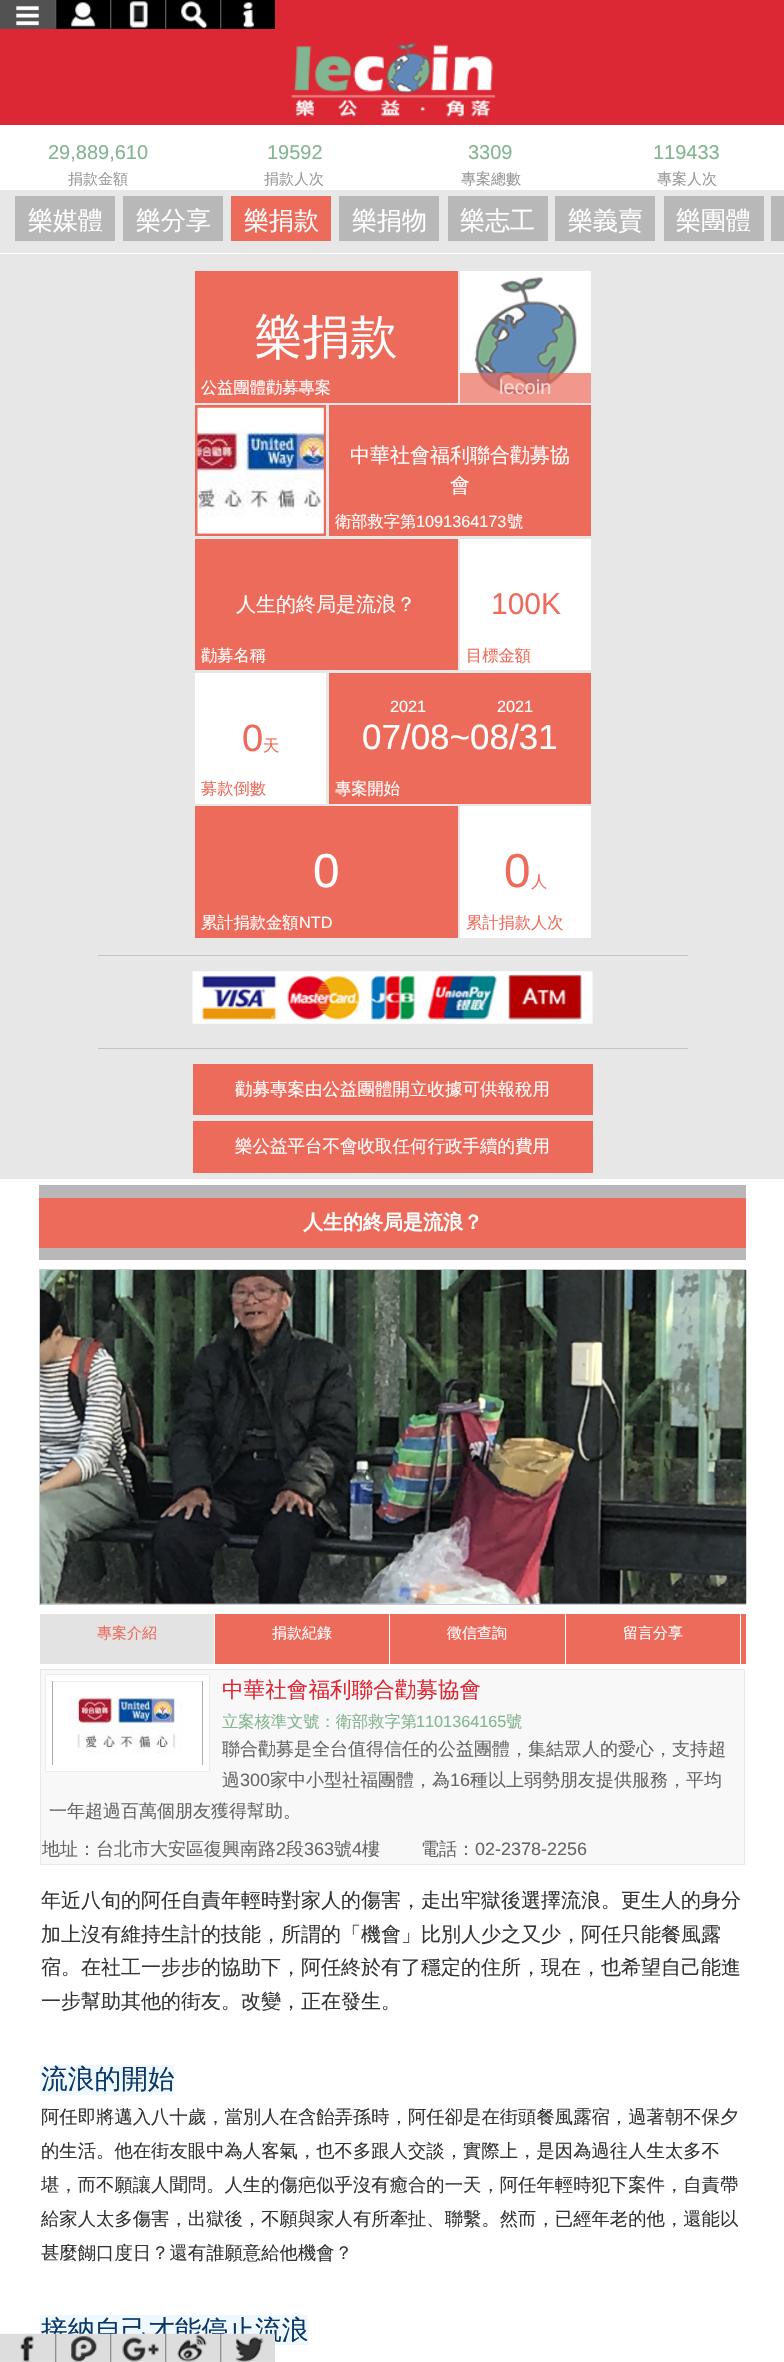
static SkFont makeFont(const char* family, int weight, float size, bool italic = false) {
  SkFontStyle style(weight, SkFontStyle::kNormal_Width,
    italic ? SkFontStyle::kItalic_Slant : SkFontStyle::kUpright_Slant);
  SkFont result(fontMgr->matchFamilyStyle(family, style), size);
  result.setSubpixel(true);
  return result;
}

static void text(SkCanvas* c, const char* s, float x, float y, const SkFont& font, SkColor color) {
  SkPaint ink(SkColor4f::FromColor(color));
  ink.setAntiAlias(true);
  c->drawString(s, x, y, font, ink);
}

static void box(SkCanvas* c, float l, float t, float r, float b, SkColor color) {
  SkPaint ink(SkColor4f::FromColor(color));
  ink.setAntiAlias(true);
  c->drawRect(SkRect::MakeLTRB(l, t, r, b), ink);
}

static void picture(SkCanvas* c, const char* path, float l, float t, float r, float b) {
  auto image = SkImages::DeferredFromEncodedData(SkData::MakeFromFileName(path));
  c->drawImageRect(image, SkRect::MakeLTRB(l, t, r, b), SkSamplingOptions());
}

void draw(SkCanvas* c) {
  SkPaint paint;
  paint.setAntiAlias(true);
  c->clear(0xffffffff);
  box(c, 0, 0, 784, 125, 0xffdc2834);
  picture(c, "img_01.png", 291, 42, 496, 117);
  box(c, 0, 0, 55, 29, 0xff525252);
  picture(c, "img_02.png", 16, 6, 39, 26);
  box(c, 55, 0, 275, 29, 0xff000000);
  picture(c, "img_03.png", 55, 0, 96, 29);
  picture(c, "img_04.png", 110, 0, 148, 29);
  picture(c, "img_05.png", 165, 0, 208, 29);
  picture(c, "img_06.png", 220, 0, 254, 29);
  SkFont face1 = makeFont("Liberation Sans", 400, 20);
  text(c, "29,889,610", 48, 159, face1, 0xff83b590);
  SkFont face2 = makeFont("WenQuanYi Zen Hei", 500, 15);
  text(c, "捐款金額", 68, 184, face2, 0xff999999);
  text(c, "19592", 267, 159, face1, 0xff83b590);
  text(c, "捐款人次", 264, 184, face2, 0xff999999);
  text(c, "3309", 468, 159, face1, 0xff83b590);
  text(c, "專案總數", 461, 184, face2, 0xff999999);
  text(c, "119433", 653, 159, face1, 0xff83b590);
  text(c, "專案人次", 657, 184, face2, 0xff999999);
  box(c, 40, 2315, 308, 2345, 0xfff0f8ff);
  SkFont face3 = makeFont("WenQuanYi Zen Hei", 500, 26.75f);
  text(c, "接納自己才能停止流浪", 41, 2339, face3, 0xff093867);
  picture(c, "img_07.png", 0, 2333, 55, 2362);
  picture(c, "img_08.png", 55, 2333, 110, 2362);
  picture(c, "img_09.png", 110, 2333, 165, 2362);
  picture(c, "img_10.png", 165, 2333, 220, 2362);
  picture(c, "img_11.png", 220, 2333, 275, 2362);
  box(c, 0, 190, 784, 253, 0xffe7e7e7);
  box(c, 15, 196, 115, 241, 0xffb8b8b8);
  SkFont face4 = makeFont("WenQuanYi Zen Hei", 500, 25);
  text(c, "樂媒體", 28, 229, face4, 0xffffffff);
  box(c, 123, 196, 223, 241, 0xffb8b8b8);
  text(c, "樂分享", 136, 229, face4, 0xffffffff);
  box(c, 231, 196, 331, 241, 0xffed6b5b);
  text(c, "樂捐款", 244, 229, face4, 0xffffffff);
  box(c, 339, 196, 439, 241, 0xffb8b8b8);
  text(c, "樂捐物", 352, 229, face4, 0xffffffff);
  box(c, 448, 196, 548, 241, 0xffb8b8b8);
  text(c, "樂志工", 460, 229, face4, 0xffffffff);
  box(c, 555, 196, 655, 241, 0xffb8b8b8);
  text(c, "樂義賣", 568, 229, face4, 0xffffffff);
  box(c, 664, 196, 764, 241, 0xffb8b8b8);
  text(c, "樂團體", 676, 229, face4, 0xffffffff);
  box(c, 771, 196, 784, 241, 0xffb8b8b8);
  box(c, 0, 254, 784, 1179, 0xffe7e7e7);
  box(c, 195, 271, 458, 403, 0xffed6b5b);
  SkFont face5 = makeFont("WenQuanYi Zen Hei", 500, 47.5f);
  text(c, "樂捐款", 255, 353, face5, 0xffffffff);
  SkFont face6 = makeFont("WenQuanYi Zen Hei", 500, 16.25f);
  text(c, "公益團體勸募專案", 201, 393, face6, 0xffffffff);
  box(c, 460, 271, 591, 403, 0xffffffff);
  picture(c, "img_12.png", 474, 277, 577, 394);
  box(c, 460, 373, 591, 403, 0xb3ed6b5b);
  text(c, "lecoin", 499, 394, face1, 0xfff5dad7);
  box(c, 195, 405, 326, 536, 0xffed6b5b);
  picture(c, "img_13.png", 197, 407, 324, 534);
  box(c, 329, 405, 591, 536, 0xffed6b5b);
  SkFont face7 = makeFont("WenQuanYi Zen Hei", 500, 20);
  text(c, "中華社會福利聯合勸募協", 350, 462, face7, 0xffffffff);
  text(c, "會", 450, 492, face7, 0xffffffff);
  text(c, "衛部救字第", 335, 527, face6, 0xffffffff);
  SkFont face8 = makeFont("Liberation Sans", 400, 16.25f);
  text(c, "1091364173", 416, 527, face8, 0xffffffff);
  text(c, "號", 507, 527, face6, 0xffffffff);
  box(c, 195, 539, 458, 670, 0xffed6b5b);
  text(c, "人生的終局是流浪？", 236, 611, face7, 0xffffffff);
  text(c, "勸募名稱", 201, 661, face6, 0xffffffff);
  box(c, 460, 539, 591, 670, 0xffffffff);
  SkFont face9 = makeFont("Liberation Sans", 400, 30);
  text(c, "100K", 491, 614, face9, 0xffed6b5b);
  text(c, "目標金額", 466, 661, face6, 0xffed6b5b);
  box(c, 195, 673, 326, 804, 0xffffffff);
  SkFont face10 = makeFont("Liberation Sans", 400, 38);
  text(c, "0", 242, 751, face10, 0xffed6b5b);
  text(c, "天", 263, 751, face6, 0xffed6b5b);
  text(c, "募款倒數", 201, 794, face6, 0xffed6b5b);
  box(c, 329, 673, 591, 804, 0xffed6b5b);
  text(c, "2021", 390, 712, face8, 0xffffffff);
  text(c, "2021", 497, 712, face8, 0xffffffff);
  SkFont face11 = makeFont("Liberation Sans", 400, 35);
  text(c, "07/08~08/31", 362, 749, face11, 0xffffffff);
  text(c, "專案開始", 335, 794, face6, 0xffffffff);
  box(c, 195, 806, 458, 938, 0xffed6b5b);
  SkFont face12 = makeFont("Liberation Sans", 400, 47.5f);
  text(c, "0", 313, 887, face12, 0xffffffff);
  text(c, "累計捐款金額", 201, 928, face6, 0xffffffff);
  text(c, "NTD", 299, 928, face8, 0xffffffff);
  box(c, 460, 806, 591, 938, 0xffffffff);
  text(c, "0", 504, 887, face12, 0xffed6b5b);
  text(c, "人", 531, 887, face6, 0xffed6b5b);
  text(c, "累計捐款人次", 466, 928, face6, 0xffed6b5b);
  box(c, 98, 955, 688, 956, 0xffc3c3c3);
  picture(c, "img_14.png", 192, 971, 593, 1024);
  box(c, 98, 1048, 688, 1049, 0xffc3c3c3);
  box(c, 193, 1064, 593, 1115, 0xffed6b5b);
  SkFont face13 = makeFont("WenQuanYi Zen Hei", 500, 17.5f);
  text(c, "勸募專案由公益團體開立收據可供報稅用", 235, 1095, face13, 0xffffffff);
  box(c, 193, 1121, 593, 1173, 0xffed6b5b);
  text(c, "樂公益平台不會收取任何行政手續的費用", 235, 1152, face13, 0xffffffff);
  box(c, 39, 1185, 746, 1260, 0xffb9b7b8);
  box(c, 39, 1198, 746, 1248, 0xffed6b5b);
  SkFont face14 = makeFont("WenQuanYi Zen Hei", 700, 20);
  text(c, "人生的終局是流浪？", 303, 1229, face14, 0xffffffff);
  c->save();
  c->clipRect(SkRect::MakeLTRB(39, 1185, 746, 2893));
  paint.setStyle(SkPaint::kStroke_Style);
  paint.setStrokeWidth(1);
  paint.setColor(0xffcccccc);
  c->drawRect(SkRect::MakeLTRB(39.5f, 1269.5f, 753.5f, 1604.5f), paint);
  c->restore();
  picture(c, "img_15.png", 40, 1270, 747, 1604);
  box(c, 215, 1614, 746, 1664, 0xffed6b5b);
  box(c, 40, 1614, 214, 1664, 0xffe3e3e3);
  text(c, "專案介紹", 97, 1638, face2, 0xffed6b5b);
  box(c, 389, 1614, 390, 1664, 0xffffffff);
  text(c, "捐款紀錄", 272, 1638, face2, 0xffffffff);
  box(c, 565, 1614, 566, 1664, 0xffffffff);
  text(c, "徵信查詢", 447, 1638, face2, 0xffffffff);
  box(c, 740, 1614, 741, 1664, 0xffffffff);
  text(c, "留言分享", 623, 1638, face2, 0xffffffff);
  paint.setStyle(SkPaint::kFill_Style);
  paint.setColor(0xfff8f8f8);
  c->drawRect(SkRect::MakeLTRB(40.5f, 1669.5f, 744.5f, 1864.5f), paint);
  paint.setStyle(SkPaint::kStroke_Style);
  paint.setColor(0xffe8e8e8);
  c->drawRect(SkRect::MakeLTRB(40.5f, 1669.5f, 744.5f, 1864.5f), paint);
  paint.setStyle(SkPaint::kFill_Style);
  paint.setColor(0x4d000000);
  paint.setMaskFilter(SkMaskFilter::MakeBlur(kNormal_SkBlurStyle, 0.5f));
  c->drawRect(SkRect::MakeLTRB(46, 1675, 209, 1771), paint);
  paint.setMaskFilter(nullptr);
  paint.setStyle(SkPaint::kStroke_Style);
  paint.setStrokeWidth(6);
  paint.setColor(0xffffffff);
  c->drawRect(SkRect::MakeLTRB(49, 1678, 206, 1768), paint);
  picture(c, "img_16.png", 53, 1681, 202, 1765);
  SkFont face15 = makeFont("WenQuanYi Zen Hei", 500, 21.6f);
  text(c, "中華社會福利聯合勸募協會", 222, 1697, face15, 0xffde2834);
  text(c, "立案核準文號：衛部救字第", 222, 1727, face6, 0xff83b590);
  text(c, "1101364165", 416, 1727, face8, 0xff83b590);
  text(c, "號", 506, 1727, face6, 0xff83b590);
  SkFont face16 = makeFont("WenQuanYi Zen Hei", 500, 18);
  text(c, "聯合勸募是全台值得信任的公益團體，集結眾人的愛心，支持超", 222, 1755, face16, 0xff666666);
  text(c, "過", 222, 1786, face16, 0xff666666);
  SkFont face17 = makeFont("Liberation Sans", 400, 18);
  text(c, "300", 240, 1786, face17, 0xff666666);
  text(c, "家中小型社福團體，為", 270, 1786, face16, 0xff666666);
  text(c, "16", 450, 1786, face17, 0xff666666);
  text(c, "種以上弱勢朋友提供服務，平均", 470, 1786, face16, 0xff666666);
  text(c, "一年超過百萬個朋友獲得幫助。", 49, 1817, face16, 0xff666666);
  text(c, "地址：台北市大安區復興南路", 42, 1855, face16, 0xff666666);
  text(c, "2", 276, 1855, face17, 0xff666666);
  text(c, "段", 286, 1855, face16, 0xff666666);
  text(c, "363", 304, 1855, face17, 0xff666666);
  text(c, "號", 334, 1855, face16, 0xff666666);
  text(c, "4", 352, 1855, face17, 0xff666666);
  text(c, "樓", 362, 1855, face16, 0xff666666);
  text(c, "電話：", 421, 1855, face16, 0xff666666);
  text(c, "02-2378-2256", 475, 1855, face17, 0xff666666);
  text(c, "年近八旬的阿任自責年輕時對家人的傷害，走出牢獄後選擇流浪。更生人的身分", 41, 1907, face7, 0xff333333);
  text(c, "加上沒有維持生計的技能，所謂的「機會」比別人少之又少，阿任只能餐風露", 41, 1941, face7, 0xff333333);
  text(c, "宿。在社工一步步的協助下，阿任終於有了穩定的住所，現在，也希望自己能進", 41, 1974, face7, 0xff333333);
  text(c, "一步幫助其他的街友。改變，正在發生。", 41, 2008, face7, 0xff333333);
  box(c, 40, 2065, 174, 2095, 0xfff0f8ff);
  text(c, "流浪的開始", 41, 2088, face3, 0xff093867);
  SkFont face18 = makeFont("WenQuanYi Zen Hei", 500, 18.35f);
  text(c, "阿任即將邁入八十歲，當別人在含飴弄孫時，阿任卻是在街頭餐風露宿，過著朝不保夕", 41, 2123, face18, 0xff333333);
  text(c, "的生活。他在街友眼中為人客氣，也不多跟人交談，實際上，是因為過往人生太多不", 41, 2157, face18, 0xff333333);
  text(c, "堪，而不願讓人聞問。人生的傷疤似乎沒有癒合的一天，阿任年輕時犯下案件，自責帶", 41, 2191, face18, 0xff333333);
  text(c, "給家人太多傷害，出獄後，不願與家人有所牽扯、聯繫。然而，已經年老的他，還能以", 41, 2225, face18, 0xff333333);
  text(c, "甚麼餬口度日？還有誰願意給他機會？", 41, 2259, face18, 0xff333333);
}
